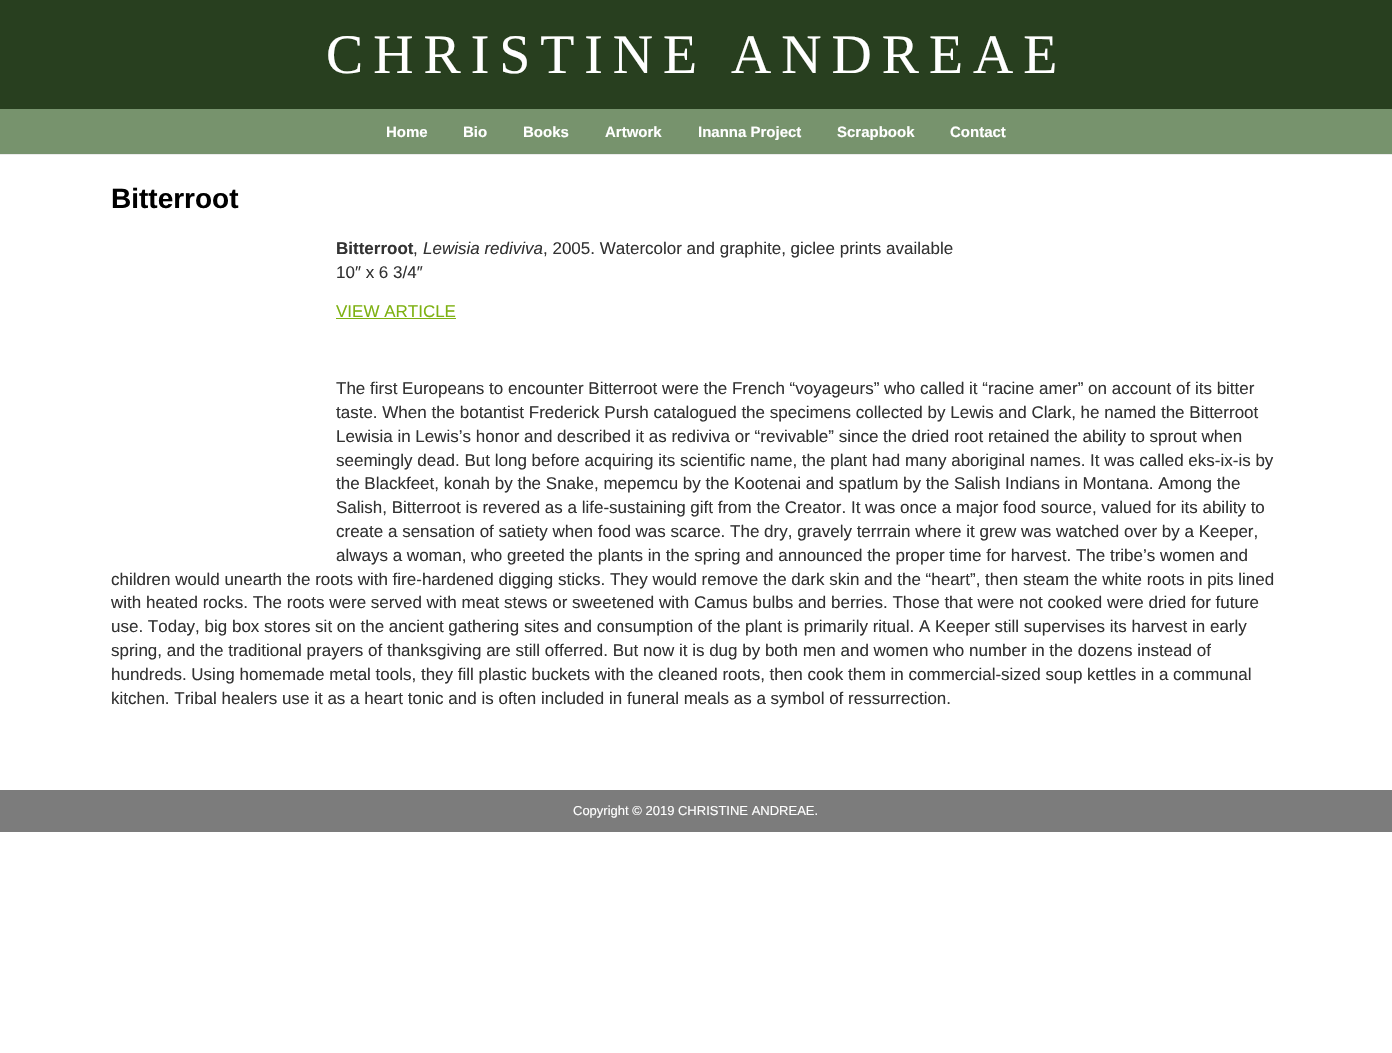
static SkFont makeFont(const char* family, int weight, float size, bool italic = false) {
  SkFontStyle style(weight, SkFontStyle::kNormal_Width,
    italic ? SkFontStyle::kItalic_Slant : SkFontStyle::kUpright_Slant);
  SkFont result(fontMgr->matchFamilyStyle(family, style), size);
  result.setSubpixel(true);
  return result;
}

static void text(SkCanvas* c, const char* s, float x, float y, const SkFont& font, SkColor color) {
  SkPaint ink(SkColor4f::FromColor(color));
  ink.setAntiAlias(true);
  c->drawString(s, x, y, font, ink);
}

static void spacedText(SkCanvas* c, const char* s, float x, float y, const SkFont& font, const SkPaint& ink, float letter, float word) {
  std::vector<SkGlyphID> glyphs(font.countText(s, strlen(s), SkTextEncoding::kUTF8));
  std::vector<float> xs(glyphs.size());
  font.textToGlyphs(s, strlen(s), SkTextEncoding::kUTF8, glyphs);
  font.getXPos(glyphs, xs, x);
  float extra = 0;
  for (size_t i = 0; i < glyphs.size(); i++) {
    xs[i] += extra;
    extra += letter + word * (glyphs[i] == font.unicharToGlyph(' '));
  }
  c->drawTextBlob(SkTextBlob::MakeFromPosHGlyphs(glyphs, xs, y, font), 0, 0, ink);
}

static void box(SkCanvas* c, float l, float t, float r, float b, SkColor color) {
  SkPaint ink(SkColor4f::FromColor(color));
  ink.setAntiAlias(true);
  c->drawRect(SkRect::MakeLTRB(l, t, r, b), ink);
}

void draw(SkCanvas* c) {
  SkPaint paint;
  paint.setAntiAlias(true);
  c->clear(0xffffffff);
  box(c, 0, 0, 1392, 109, 0xff283f1f);
  SkFont face1 = makeFont("Liberation Serif", 400, 55.75f);
  paint.setColor(0xffffffff);
  spacedText(c, "CHRISTINE ANDREAE", 326, 73, face1, paint, 10, 0);
  box(c, 0, 109, 1392, 154, 0xff77936d);
  box(c, 0, 154, 1392, 155, 0xffebebeb);
  SkFont face2 = makeFont("Liberation Sans", 700, 15);
  text(c, "Home", 386, 137, face2, 0xffffffff);
  text(c, "Bio", 463, 137, face2, 0xffffffff);
  text(c, "Books", 523, 137, face2, 0xffffffff);
  text(c, "Artwork", 605, 137, face2, 0xffffffff);
  text(c, "Inanna Project", 698, 137, face2, 0xffffffff);
  text(c, "Scrapbook", 837, 137, face2, 0xffffffff);
  text(c, "Contact", 950, 137, face2, 0xffffffff);
  SkFont face3 = makeFont("Liberation Sans", 700, 28);
  text(c, "Bitterroot", 111, 208, face3, 0xff000000);
  SkFont face4 = makeFont("Liberation Sans", 700, 17);
  text(c, "Bitterroot", 336, 254, face4, 0xff333333);
  SkFont face5 = makeFont("Liberation Sans", 400, 17);
  text(c, ",", 413, 254, face5, 0xff333333);
  SkFont face6 = makeFont("Liberation Sans", 400, 17, true);
  text(c, "Lewisia rediviva", 423, 254, face6, 0xff333333);
  text(c, ", 2005. Watercolor and graphite, giclee prints available", 543, 254, face5, 0xff333333);
  text(c, "10″ x 6 3/4″", 336, 278, face5, 0xff333333);
  text(c, "VIEW ARTICLE", 336, 317, face5, 0xff7eb112);
  box(c, 336, 318, 456, 319, 0xff7eb112);
  text(c, "The first Europeans to encounter Bitterroot were the French “voyageurs” who called it “racine amer” on account of its bitter", 336, 394, face5, 0xff333333);
  text(c, "taste. When the botantist Frederick Pursh catalogued the specimens collected by Lewis and Clark, he named the Bitterroot", 336, 418, face5, 0xff333333);
  text(c, "Lewisia in Lewis’s honor and described it as rediviva or “revivable” since the dried root retained the ability to sprout when", 336, 442, face5, 0xff333333);
  text(c, "seemingly dead. But long before acquiring its scientific name, the plant had many aboriginal names. It was called eks-ix-is by", 336, 466, face5, 0xff333333);
  text(c, "the Blackfeet, konah by the Snake, mepemcu by the Kootenai and spatlum by the Salish Indians in Montana. Among the", 336, 489, face5, 0xff333333);
  text(c, "Salish, Bitterroot is revered as a life-sustaining gift from the Creator. It was once a major food source, valued for its ability to", 336, 513, face5, 0xff333333);
  text(c, "create a sensation of satiety when food was scarce. The dry, gravely terrrain where it grew was watched over by a Keeper,", 336, 537, face5, 0xff333333);
  text(c, "always a woman, who greeted the plants in the spring and announced the proper time for harvest. The tribe’s women and", 336, 561, face5, 0xff333333);
  text(c, "children would unearth the roots with fire-hardened digging sticks. They would remove the dark skin and the “heart”, then steam the white roots in pits lined", 111, 585, face5, 0xff333333);
  text(c, "with heated rocks. The roots were served with meat stews or sweetened with Camus bulbs and berries. Those that were not cooked were dried for future", 111, 608, face5, 0xff333333);
  text(c, "use. Today, big box stores sit on the ancient gathering sites and consumption of the plant is primarily ritual. A Keeper still supervises its harvest in early", 111, 632, face5, 0xff333333);
  text(c, "spring, and the traditional prayers of thanksgiving are still offerred. But now it is dug by both men and women who number in the dozens instead of", 111, 656, face5, 0xff333333);
  text(c, "hundreds. Using homemade metal tools, they fill plastic buckets with the cleaned roots, then cook them in commercial-sized soup kettles in a communal", 111, 680, face5, 0xff333333);
  text(c, "kitchen. Tribal healers use it as a heart tonic and is often included in funeral meals as a symbol of ressurrection.", 111, 704, face5, 0xff333333);
  box(c, 0, 790, 1392, 832, 0xff7c7c7c);
  SkFont face7 = makeFont("Liberation Sans", 400, 13);
  text(c, "Copyright © 2019 CHRISTINE ANDREAE.", 573, 815, face7, 0xffffffff);
}
